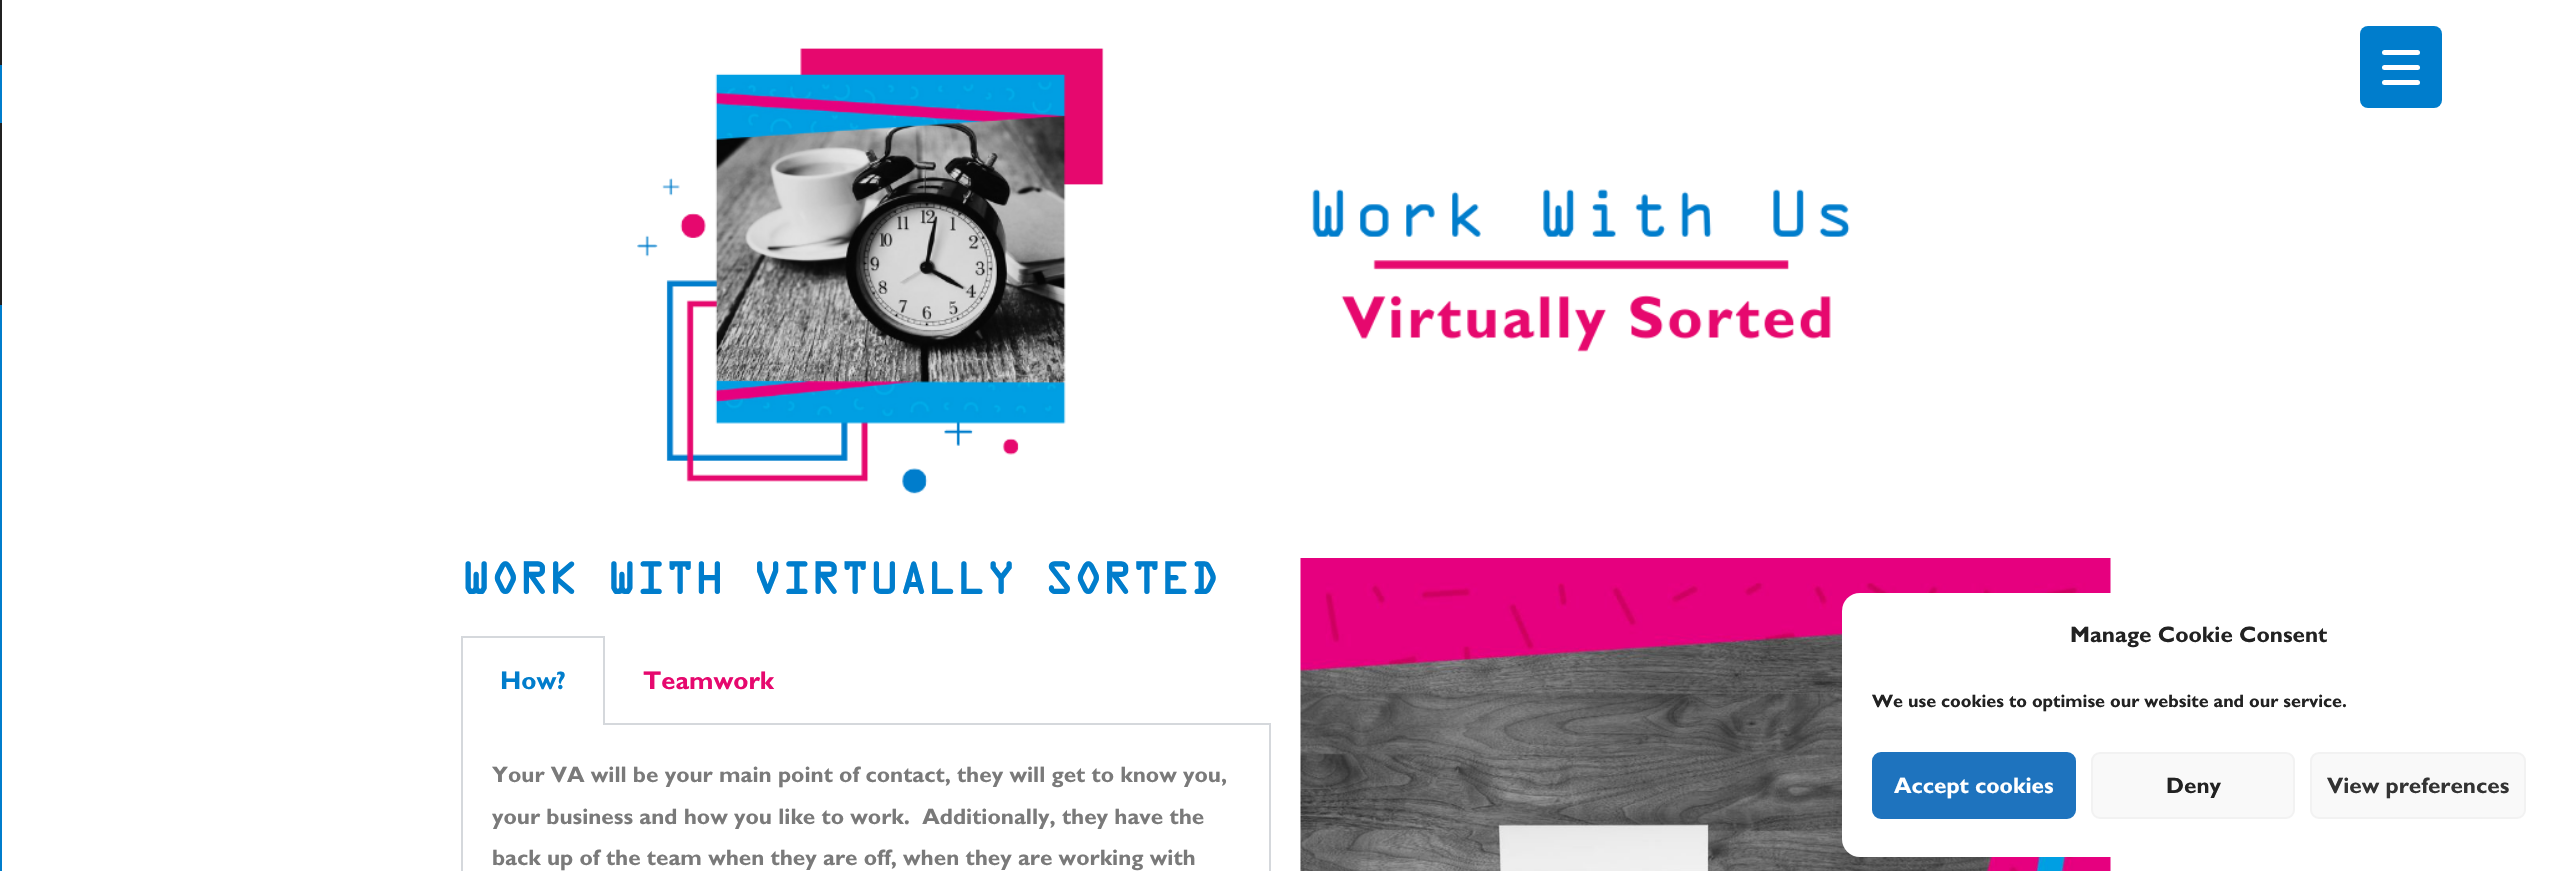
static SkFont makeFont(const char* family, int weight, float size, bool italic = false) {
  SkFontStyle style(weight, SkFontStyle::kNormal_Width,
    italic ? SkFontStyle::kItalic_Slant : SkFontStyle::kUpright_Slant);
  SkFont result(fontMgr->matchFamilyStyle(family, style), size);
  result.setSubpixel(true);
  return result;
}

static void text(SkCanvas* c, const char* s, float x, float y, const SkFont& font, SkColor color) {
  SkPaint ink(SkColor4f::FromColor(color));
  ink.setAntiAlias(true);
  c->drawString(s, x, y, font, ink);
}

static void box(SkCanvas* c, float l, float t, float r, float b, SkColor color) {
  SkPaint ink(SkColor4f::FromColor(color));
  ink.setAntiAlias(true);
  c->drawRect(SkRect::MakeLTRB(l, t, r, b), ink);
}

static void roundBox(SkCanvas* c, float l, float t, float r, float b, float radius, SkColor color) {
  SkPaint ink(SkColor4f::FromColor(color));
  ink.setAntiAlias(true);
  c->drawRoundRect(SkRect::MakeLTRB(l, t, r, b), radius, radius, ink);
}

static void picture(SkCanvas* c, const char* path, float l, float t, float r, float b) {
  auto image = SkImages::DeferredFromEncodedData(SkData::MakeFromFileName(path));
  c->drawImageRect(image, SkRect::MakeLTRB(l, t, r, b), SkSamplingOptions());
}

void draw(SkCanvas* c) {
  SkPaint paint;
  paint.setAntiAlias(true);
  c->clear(0xffffffff);
  box(c, 0, 305, 2, 871, 0xff007dcc);
  box(c, 0, 0, 2, 65, 0xff212121);
  box(c, 0, 65, 2, 125, 0xff007dcc);
  box(c, 0, 123, 2, 125, 0xff212121);
  box(c, 0, 125, 2, 185, 0xff212121);
  box(c, 0, 185, 2, 245, 0xff212121);
  box(c, 0, 245, 2, 305, 0xff212121);
  roundBox(c, 2360, 26, 2442, 108, 8, 0xff007dcc);
  roundBox(c, 2382, 65, 2420, 70, 2.5f, 0xffffffff);
  roundBox(c, 2382, 50, 2420, 55, 2.5f, 0xffffffff);
  roundBox(c, 2382, 80, 2420, 85, 2.5f, 0xffffffff);
  picture(c, "img_01.png", 637, 48, 1850, 494);
  SkFont face1 = makeFont("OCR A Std", 700, 40.5f);
  text(c, "WORK WITH VIRTUALLY SORTED", 461, 594, face1, 0xff007dcc);
  box(c, 461, 636, 605, 638, 0xffd5d8dc);
  box(c, 603, 636, 605, 725, 0xffd5d8dc);
  box(c, 461, 636, 463, 725, 0xffd5d8dc);
  SkFont face2 = makeFont("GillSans", 700, 25.5f);
  text(c, "How?", 500, 689, face2, 0xff007dcc);
  box(c, 603, 723, 1271, 725, 0xffd5d8dc);
  text(c, "Teamwork", 643, 689, face2, 0xffe6086e);
  box(c, 1269, 725, 1271, 871, 0xffd5d8dc);
  box(c, 461, 725, 463, 871, 0xffd5d8dc);
  SkFont face3 = makeFont("GillSans", 700, 22.5f);
  text(c, "Your VA will be your main point of contact, they will get to know you,", 492, 782, face3, 0xff7a7a7a);
  text(c, "your business and how you like to work.  Additionally, they have the", 492, 824, face3, 0xff7a7a7a);
  text(c, "back up of the team when they are off, when they are working with", 492, 865, face3, 0xff7a7a7a);
  picture(c, "img_02.png", 1300, 558, 2111, 871);
  roundBox(c, 1842, 593, 2556, 857, 18, 0xffffffff);
  text(c, "Manage Cookie Consent", 2070, 642, face3, 0xff222222);
  SkFont face4 = makeFont("GillSans", 700, 18);
  text(c, "We use cookies to optimise our website and our service.", 1872, 707, face4, 0xff222222);
  paint.setColor(0xff1e73be);
  c->drawRoundRect(SkRect::MakeLTRB(1873, 753, 2075, 818), 8, 8, paint);
  paint.setStyle(SkPaint::kStroke_Style);
  paint.setStrokeWidth(2);
  c->drawRoundRect(SkRect::MakeLTRB(1873, 753, 2075, 818), 8, 8, paint);
  text(c, "Accept cookies", 1894, 793, face3, 0xffffffff);
  paint.setStyle(SkPaint::kFill_Style);
  paint.setColor(0xfff9f9f9);
  c->drawRoundRect(SkRect::MakeLTRB(2092, 753, 2294, 818), 8, 8, paint);
  paint.setStyle(SkPaint::kStroke_Style);
  paint.setColor(0xfff2f2f2);
  c->drawRoundRect(SkRect::MakeLTRB(2092, 753, 2294, 818), 8, 8, paint);
  text(c, "Deny", 2166, 793, face3, 0xff222222);
  paint.setStyle(SkPaint::kFill_Style);
  paint.setColor(0xfff9f9f9);
  c->drawRoundRect(SkRect::MakeLTRB(2311, 753, 2525, 818), 8, 8, paint);
  paint.setStyle(SkPaint::kStroke_Style);
  paint.setColor(0xfff2f2f2);
  c->drawRoundRect(SkRect::MakeLTRB(2311, 753, 2525, 818), 8, 8, paint);
  text(c, "View preferences", 2327, 793, face3, 0xff333333);
}
